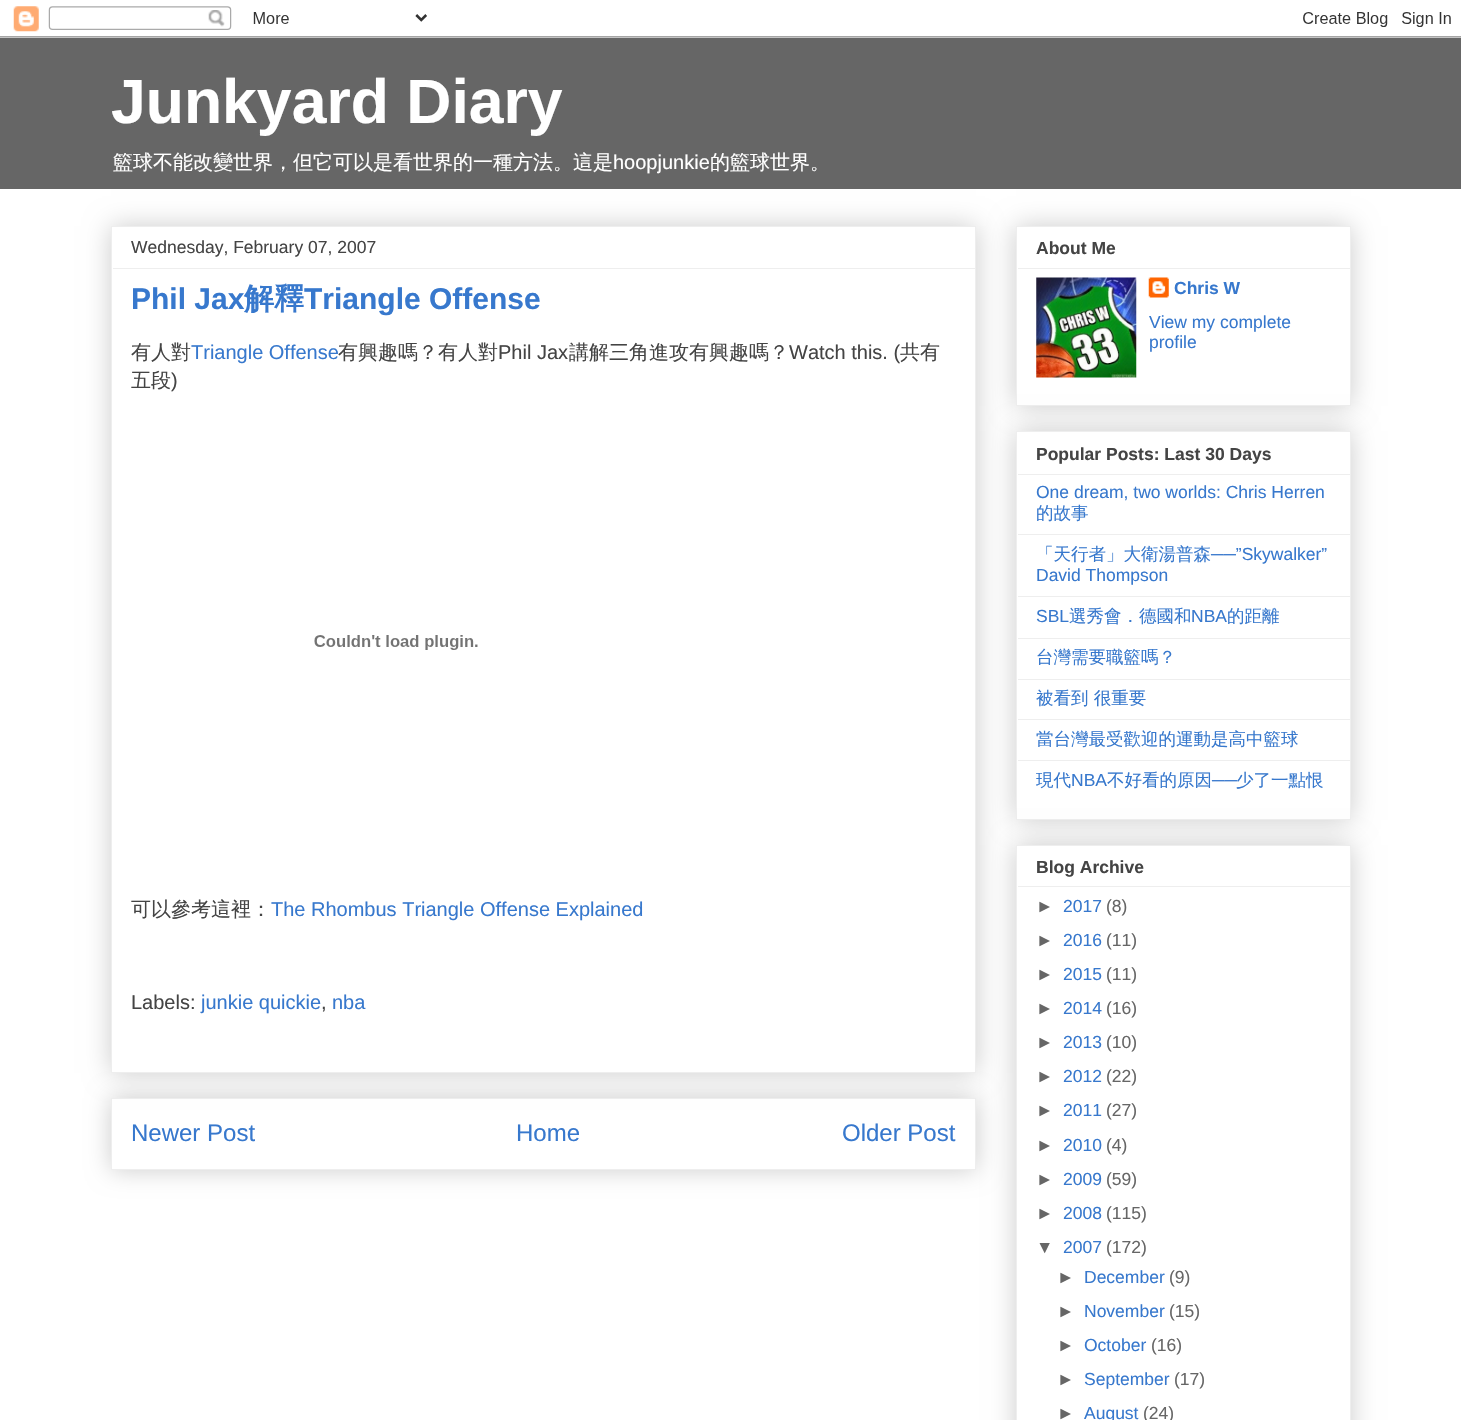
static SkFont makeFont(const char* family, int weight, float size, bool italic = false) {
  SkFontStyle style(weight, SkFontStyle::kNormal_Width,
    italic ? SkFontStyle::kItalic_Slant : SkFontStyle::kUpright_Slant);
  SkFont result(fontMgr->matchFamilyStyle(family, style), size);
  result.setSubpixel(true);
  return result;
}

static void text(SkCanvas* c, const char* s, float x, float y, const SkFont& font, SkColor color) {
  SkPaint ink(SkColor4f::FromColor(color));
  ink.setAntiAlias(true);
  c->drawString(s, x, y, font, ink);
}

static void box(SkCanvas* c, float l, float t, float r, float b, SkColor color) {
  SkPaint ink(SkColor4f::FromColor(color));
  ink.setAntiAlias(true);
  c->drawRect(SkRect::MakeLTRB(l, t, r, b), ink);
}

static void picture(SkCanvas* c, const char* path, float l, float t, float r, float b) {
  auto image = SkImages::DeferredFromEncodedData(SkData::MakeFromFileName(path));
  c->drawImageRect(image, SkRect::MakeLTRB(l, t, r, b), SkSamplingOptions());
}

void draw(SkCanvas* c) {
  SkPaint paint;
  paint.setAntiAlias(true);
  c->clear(0xffffffff);
  picture(c, "img_01.png", 0, 6, 1461, 38);
  box(c, 0, 38, 1461, 189, 0xff666666);
  SkFont face1 = makeFont("Liberation Sans", 700, 62.5f);
  text(c, "Junkyard Diary", 111, 123, face1, 0xffffffff);
  SkFont face2 = makeFont("WenQuanYi Zen Hei", 500, 20);
  text(c, "籃球不能改變世界，但它可以是看世界的一種方法。這是", 113, 169, face2, 0xffffffff);
  SkFont face3 = makeFont("Liberation Sans", 400, 20);
  text(c, "hoopjunkie", 613, 169, face3, 0xffffffff);
  text(c, "的籃球世界。", 710, 169, face2, 0xffffffff);
  paint.setColor(0x33000000);
  paint.setMaskFilter(SkMaskFilter::MakeBlur(kNormal_SkBlurStyle, 12.5f));
  c->drawRect(SkRect::MakeLTRB(111, 1098, 976, 1170), paint);
  paint.setMaskFilter(nullptr);
  paint.setColor(0xffffffff);
  c->drawRect(SkRect::MakeLTRB(111.5f, 1098.5f, 975.5f, 1169.5f), paint);
  paint.setStyle(SkPaint::kStroke_Style);
  paint.setStrokeWidth(1);
  paint.setColor(0xffeeeeee);
  c->drawRect(SkRect::MakeLTRB(111.5f, 1098.5f, 975.5f, 1169.5f), paint);
  paint.setStyle(SkPaint::kFill_Style);
  paint.setColor(0x33000000);
  paint.setMaskFilter(SkMaskFilter::MakeBlur(kNormal_SkBlurStyle, 12.5f));
  c->drawRect(SkRect::MakeLTRB(111, 226, 976, 1073), paint);
  paint.setMaskFilter(nullptr);
  paint.setColor(0xffffffff);
  c->drawRect(SkRect::MakeLTRB(111.5f, 226.5f, 975.5f, 1072.5f), paint);
  paint.setStyle(SkPaint::kStroke_Style);
  paint.setColor(0xffeeeeee);
  c->drawRect(SkRect::MakeLTRB(111.5f, 226.5f, 975.5f, 1072.5f), paint);
  SkFont face4 = makeFont("Liberation Sans", 400, 17.5f);
  text(c, "Wednesday, February 07, 2007", 131, 253, face4, 0xff444444);
  box(c, 113, 268, 975, 269, 0xffeeeeee);
  SkFont face5 = makeFont("Liberation Sans", 700, 30);
  text(c, "Phil Jax", 131, 309, face5, 0xff3778cd);
  SkFont face6 = makeFont("WenQuanYi Zen Hei", 700, 30);
  text(c, "解釋", 244, 309, face6, 0xff3778cd);
  text(c, "Triangle Offense", 304, 309, face5, 0xff3778cd);
  text(c, "有人對", 131, 359, face2, 0xff444444);
  text(c, "Triangle Offense", 191, 359, face3, 0xff3778cd);
  text(c, "有興趣嗎？有人對", 338, 359, face2, 0xff444444);
  text(c, "Phil Jax", 498, 359, face3, 0xff444444);
  text(c, "講解三角進攻有興趣嗎？", 569, 359, face2, 0xff444444);
  text(c, "Watch this. (", 789, 359, face3, 0xff444444);
  text(c, "共有", 900, 359, face2, 0xff444444);
  text(c, "五段", 131, 387, face2, 0xff444444);
  text(c, ")", 171, 387, face3, 0xff444444);
  picture(c, "img_02.png", 314, 635, 478, 650);
  text(c, "可以參考這裡：", 131, 916, face2, 0xff444444);
  text(c, "The Rhombus Triangle Offense Explained", 271, 916, face3, 0xff3778cd);
  text(c, "Labels:", 131, 1009, face3, 0xff444444);
  text(c, "junkie quickie", 201, 1009, face3, 0xff3778cd);
  text(c, ",", 321, 1009, face3, 0xff444444);
  text(c, "nba", 332, 1009, face3, 0xff3778cd);
  SkFont face7 = makeFont("Liberation Sans", 400, 24);
  text(c, "Newer Post", 131, 1141, face7, 0xff3778cd);
  text(c, "Home", 516, 1141, face7, 0xff3778cd);
  text(c, "Older Post", 842, 1141, face7, 0xff3778cd);
  paint.setStyle(SkPaint::kFill_Style);
  paint.setColor(0x33000000);
  paint.setMaskFilter(SkMaskFilter::MakeBlur(kNormal_SkBlurStyle, 12.5f));
  c->drawRect(SkRect::MakeLTRB(1016, 226, 1351, 406), paint);
  paint.setMaskFilter(nullptr);
  paint.setColor(0xffffffff);
  c->drawRect(SkRect::MakeLTRB(1016.5f, 226.5f, 1350.5f, 405.5f), paint);
  paint.setStyle(SkPaint::kStroke_Style);
  paint.setColor(0xffeeeeee);
  c->drawRect(SkRect::MakeLTRB(1016.5f, 226.5f, 1350.5f, 405.5f), paint);
  SkFont face8 = makeFont("Liberation Sans", 700, 17.5f);
  text(c, "About Me", 1036, 254, face8, 0xff444444);
  box(c, 1018, 268, 1350, 269, 0xffeeeeee);
  picture(c, "img_03.png", 1036, 277, 1137, 378);
  picture(c, "img_04.png", 1148, 277, 1169, 298);
  text(c, "Chris W", 1174, 294, face8, 0xff3778cd);
  text(c, "View my complete", 1149, 328, face4, 0xff3778cd);
  text(c, "profile", 1149, 348, face4, 0xff3778cd);
  paint.setStyle(SkPaint::kFill_Style);
  paint.setColor(0x33000000);
  paint.setMaskFilter(SkMaskFilter::MakeBlur(kNormal_SkBlurStyle, 12.5f));
  c->drawRect(SkRect::MakeLTRB(1016, 431, 1351, 820), paint);
  paint.setMaskFilter(nullptr);
  paint.setColor(0xffffffff);
  c->drawRect(SkRect::MakeLTRB(1016.5f, 431.5f, 1350.5f, 819.5f), paint);
  paint.setStyle(SkPaint::kStroke_Style);
  paint.setColor(0xffeeeeee);
  c->drawRect(SkRect::MakeLTRB(1016.5f, 431.5f, 1350.5f, 819.5f), paint);
  text(c, "Popular Posts: Last 30 Days", 1036, 460, face8, 0xff444444);
  box(c, 1018, 474, 1350, 475, 0xffeeeeee);
  text(c, "One dream, two worlds: Chris Herren", 1036, 498, face4, 0xff3778cd);
  SkFont face9 = makeFont("WenQuanYi Zen Hei", 500, 17.5f);
  text(c, "的故事", 1036, 519, face9, 0xff3778cd);
  box(c, 1018, 534, 1350, 535, 0xffeeeeee);
  text(c, "「天行者」大衛湯普森", 1036, 560, face9, 0xff3778cd);
  text(c, "──”Skywalker”", 1211, 560, face4, 0xff3778cd);
  text(c, "David Thompson", 1036, 581, face4, 0xff3778cd);
  box(c, 1018, 596, 1350, 597, 0xffeeeeee);
  text(c, "SBL", 1036, 622, face4, 0xff3778cd);
  text(c, "選秀會．德國和", 1069, 622, face9, 0xff3778cd);
  text(c, "NBA", 1191, 622, face4, 0xff3778cd);
  text(c, "的距離", 1227, 622, face9, 0xff3778cd);
  box(c, 1018, 638, 1350, 639, 0xffeeeeee);
  text(c, "台灣需要職籃嗎？", 1036, 663, face9, 0xff3778cd);
  box(c, 1018, 679, 1350, 680, 0xffeeeeee);
  text(c, "被看到 很重要", 1036, 704, face9, 0xff3778cd);
  box(c, 1018, 719, 1350, 720, 0xffeeeeee);
  text(c, "當台灣最受歡迎的運動是高中籃球", 1036, 745, face9, 0xff3778cd);
  box(c, 1018, 760, 1350, 761, 0xffeeeeee);
  text(c, "現代", 1036, 786, face9, 0xff3778cd);
  text(c, "NBA", 1071, 786, face4, 0xff3778cd);
  text(c, "不好看的原因", 1107, 786, face9, 0xff3778cd);
  text(c, "──", 1212, 786, face4, 0xff3778cd);
  text(c, "少了一點恨", 1236, 786, face9, 0xff3778cd);
  paint.setStyle(SkPaint::kFill_Style);
  paint.setColor(0x33000000);
  paint.setMaskFilter(SkMaskFilter::MakeBlur(kNormal_SkBlurStyle, 12.5f));
  c->drawRect(SkRect::MakeLTRB(1016, 845, 1351, 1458), paint);
  paint.setMaskFilter(nullptr);
  paint.setColor(0xffffffff);
  c->drawRect(SkRect::MakeLTRB(1016.5f, 845.5f, 1350.5f, 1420.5f), paint);
  paint.setStyle(SkPaint::kStroke_Style);
  paint.setColor(0xffeeeeee);
  c->drawRect(SkRect::MakeLTRB(1016.5f, 845.5f, 1350.5f, 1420.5f), paint);
  text(c, "Blog Archive", 1036, 873, face8, 0xff444444);
  box(c, 1018, 886, 1350, 887, 0xffeeeeee);
  text(c, "►", 1036, 912, face4, 0xff666666);
  text(c, "2017", 1063, 912, face4, 0xff3778cd);
  text(c, "(8)", 1106, 912, face4, 0xff666666);
  text(c, "►", 1036, 946, face4, 0xff666666);
  text(c, "2016", 1063, 946, face4, 0xff3778cd);
  text(c, "(11)", 1106, 946, face4, 0xff666666);
  text(c, "►", 1036, 980, face4, 0xff666666);
  text(c, "2015", 1063, 980, face4, 0xff3778cd);
  text(c, "(11)", 1106, 980, face4, 0xff666666);
  text(c, "►", 1036, 1014, face4, 0xff666666);
  text(c, "2014", 1063, 1014, face4, 0xff3778cd);
  text(c, "(16)", 1106, 1014, face4, 0xff666666);
  text(c, "►", 1036, 1048, face4, 0xff666666);
  text(c, "2013", 1063, 1048, face4, 0xff3778cd);
  text(c, "(10)", 1106, 1048, face4, 0xff666666);
  text(c, "►", 1036, 1082, face4, 0xff666666);
  text(c, "2012", 1063, 1082, face4, 0xff3778cd);
  text(c, "(22)", 1106, 1082, face4, 0xff666666);
  text(c, "►", 1036, 1116, face4, 0xff666666);
  text(c, "2011", 1063, 1116, face4, 0xff3778cd);
  text(c, "(27)", 1106, 1116, face4, 0xff666666);
  text(c, "►", 1036, 1151, face4, 0xff666666);
  text(c, "2010", 1063, 1151, face4, 0xff3778cd);
  text(c, "(4)", 1106, 1151, face4, 0xff666666);
  text(c, "►", 1036, 1185, face4, 0xff666666);
  text(c, "2009", 1063, 1185, face4, 0xff3778cd);
  text(c, "(59)", 1106, 1185, face4, 0xff666666);
  text(c, "►", 1036, 1219, face4, 0xff666666);
  text(c, "2008", 1063, 1219, face4, 0xff3778cd);
  text(c, "(115)", 1106, 1219, face4, 0xff666666);
  text(c, "▼", 1036, 1253, face4, 0xff666666);
  text(c, "2007", 1063, 1253, face4, 0xff3778cd);
  text(c, "(172)", 1106, 1253, face4, 0xff666666);
  text(c, "►", 1057, 1283, face4, 0xff666666);
  text(c, "December", 1084, 1283, face4, 0xff3778cd);
  text(c, "(9)", 1169, 1283, face4, 0xff666666);
  text(c, "►", 1057, 1317, face4, 0xff666666);
  text(c, "November", 1084, 1317, face4, 0xff3778cd);
  text(c, "(15)", 1169, 1317, face4, 0xff666666);
  text(c, "►", 1057, 1351, face4, 0xff666666);
  text(c, "October", 1084, 1351, face4, 0xff3778cd);
  text(c, "(16)", 1151, 1351, face4, 0xff666666);
  text(c, "►", 1057, 1385, face4, 0xff666666);
  text(c, "September", 1084, 1385, face4, 0xff3778cd);
  text(c, "(17)", 1174, 1385, face4, 0xff666666);
  text(c, "►", 1057, 1419, face4, 0xff666666);
  text(c, "August", 1084, 1419, face4, 0xff3778cd);
  text(c, "(24)", 1143, 1419, face4, 0xff666666);
}
